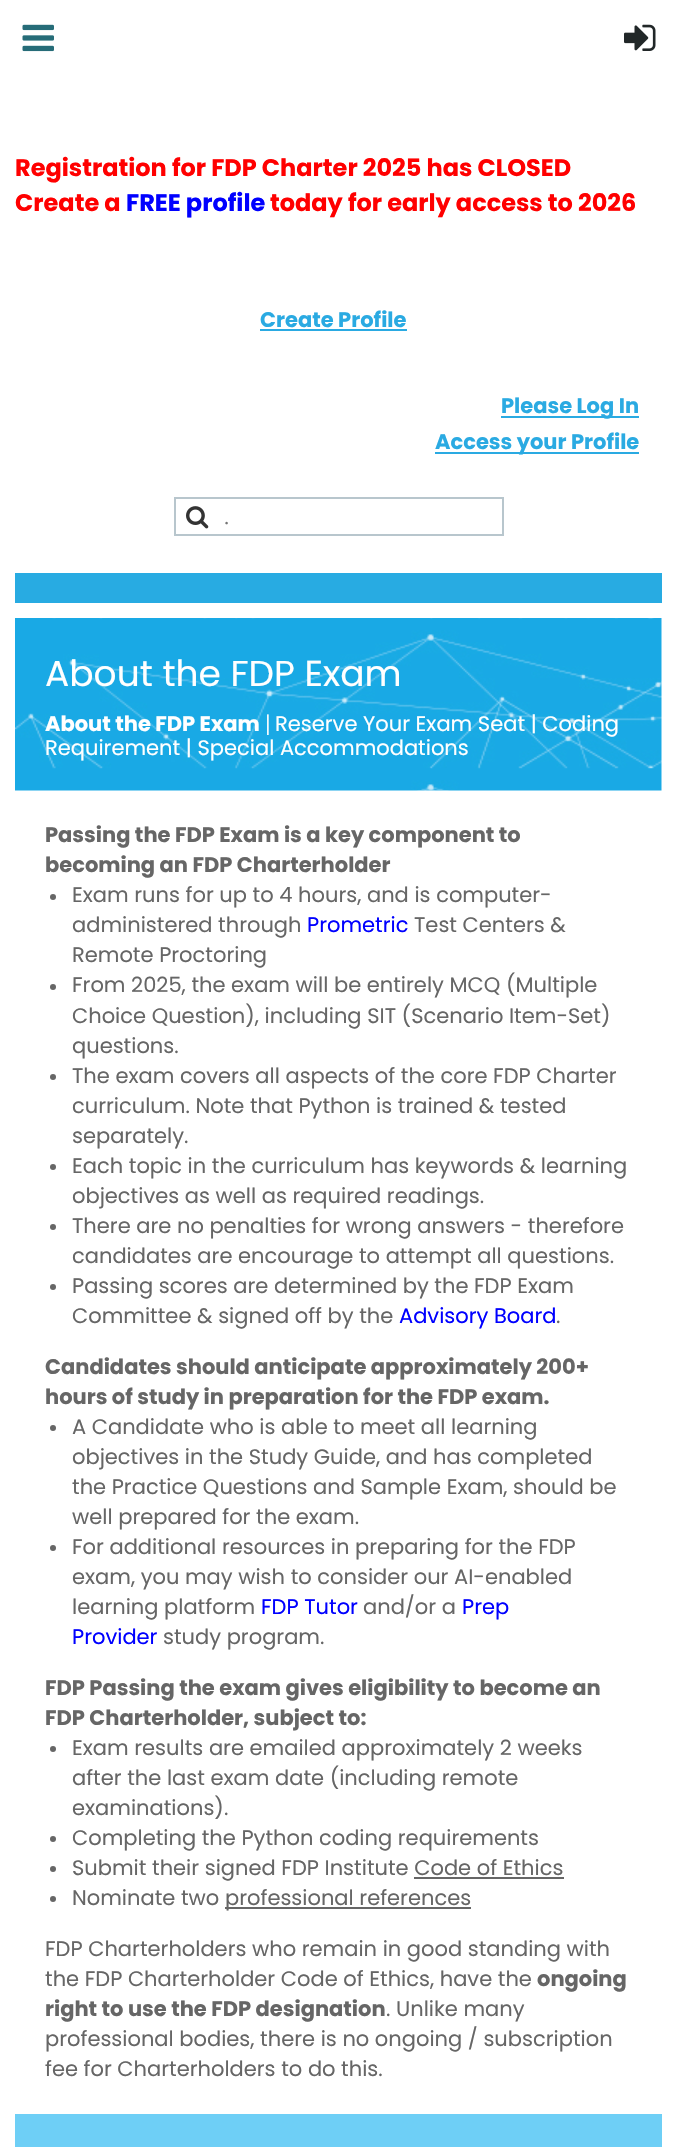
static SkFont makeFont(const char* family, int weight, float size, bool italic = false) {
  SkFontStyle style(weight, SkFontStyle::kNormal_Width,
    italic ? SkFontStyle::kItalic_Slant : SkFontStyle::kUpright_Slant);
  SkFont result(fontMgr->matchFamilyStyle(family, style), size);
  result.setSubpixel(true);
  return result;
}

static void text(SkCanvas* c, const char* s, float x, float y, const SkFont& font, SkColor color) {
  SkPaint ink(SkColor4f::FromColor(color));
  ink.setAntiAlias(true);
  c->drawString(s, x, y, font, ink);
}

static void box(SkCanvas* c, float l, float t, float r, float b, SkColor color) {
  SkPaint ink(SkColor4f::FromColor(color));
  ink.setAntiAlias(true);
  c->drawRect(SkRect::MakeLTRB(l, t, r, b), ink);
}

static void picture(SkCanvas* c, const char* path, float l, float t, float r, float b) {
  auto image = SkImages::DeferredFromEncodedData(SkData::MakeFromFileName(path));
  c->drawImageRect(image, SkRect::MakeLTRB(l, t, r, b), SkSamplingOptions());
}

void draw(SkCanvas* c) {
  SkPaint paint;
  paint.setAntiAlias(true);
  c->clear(0xffffffff);
  picture(c, "img_01.png", 22, 24, 54, 52);
  picture(c, "img_02.png", 624, 24, 656, 51);
  SkFont face1 = makeFont("Poppins", 700, 24);
  text(c, "Registration for FDP Charter 2025 has CLOSED", 15, 176, face1, 0xffff0000);
  text(c, "Create a", 15, 211, face1, 0xffff0000);
  text(c, "FREE profile", 126, 211, face1, 0xff0000ff);
  text(c, "today for early access to 2026", 270, 211, face1, 0xffff0000);
  SkFont face2 = makeFont("Poppins", 700, 21);
  text(c, "Create Profile", 260, 327, face2, 0xff2aaae2);
  box(c, 260, 329, 407, 331, 0xff2aaae2);
  box(c, 501, 416, 639, 418, 0xff2aaae2);
  text(c, "Please Log In", 501, 413, face2, 0xff2aaae2);
  box(c, 435, 452, 639, 454, 0xff2aaae2);
  text(c, "Access your Profile", 435, 449, face2, 0xff2aaae2);
  paint.setStyle(SkPaint::kStroke_Style);
  paint.setStrokeWidth(2);
  paint.setColor(0xffb8c6cd);
  c->drawRect(SkRect::MakeLTRB(175, 498, 503, 535), paint);
  picture(c, "img_03.png", 186, 506, 209, 529);
  SkFont face3 = makeFont("Ubuntu", 400, 21);
  text(c, ".", 224, 524, face3, 0xff757575);
  box(c, 15, 573, 662, 603, 0xff28abe2);
  picture(c, "img_04.png", 15, 618, 662, 791);
  SkFont face4 = makeFont("Poppins", 400, 36);
  text(c, "About the FDP Exam", 45, 686, face4, 0xffffffff);
  text(c, "About the FDP Exam", 45, 731, face2, 0xffffffff);
  text(c, "|", 265, 731, face3, 0xffffffff);
  SkFont face5 = makeFont("Poppins", 400, 21);
  text(c, "Reserve Your Exam Seat | Coding", 275, 731, face5, 0xffffffff);
  text(c, "Requirement | Special Accommodations", 45, 755, face5, 0xffffffff);
  text(c, "Passing the FDP Exam is a key component to", 45, 842, face2, 0xff666666);
  text(c, "becoming an FDP Charterholder", 45, 872, face2, 0xff666666);
  paint.setStyle(SkPaint::kFill_Style);
  paint.setColor(0xff666666);
  c->drawCircle(53, 897, 3, paint);
  text(c, "Exam runs for up to 4 hours, and is computer-", 72, 902, face5, 0xff666666);
  text(c, "administered through", 72, 932, face5, 0xff666666);
  text(c, "Prometric", 307, 932, face5, 0xff0000ff);
  text(c, "Test Centers &", 414, 932, face5, 0xff666666);
  text(c, "Remote Proctoring", 72, 962, face5, 0xff666666);
  c->drawCircle(53, 987, 3, paint);
  text(c, "From 2025, the exam will be entirely MCQ (Multiple", 72, 992, face5, 0xff666666);
  text(c, "Choice Question), including SIT (Scenario Item-Set)", 72, 1023, face5, 0xff666666);
  text(c, "questions.", 72, 1053, face5, 0xff666666);
  c->drawCircle(53, 1077, 3, paint);
  text(c, "The exam covers all aspects of the core FDP Charter", 72, 1083, face5, 0xff666666);
  text(c, "curriculum. Note that Python is trained & tested", 72, 1113, face5, 0xff666666);
  text(c, "separately.", 72, 1143, face5, 0xff666666);
  c->drawCircle(53, 1167, 3, paint);
  text(c, "Each topic in the curriculum has keywords & learning", 72, 1173, face5, 0xff666666);
  text(c, "objectives as well as required readings.", 72, 1203, face5, 0xff666666);
  c->drawCircle(53, 1227, 3, paint);
  text(c, "There are no penalties for wrong answers - therefore", 72, 1233, face5, 0xff666666);
  text(c, "candidates are encourage to attempt all questions.", 72, 1263, face5, 0xff666666);
  c->drawCircle(53, 1287, 3, paint);
  text(c, "Passing scores are determined by the FDP Exam", 72, 1293, face5, 0xff666666);
  text(c, "Committee & signed off by the", 72, 1323, face5, 0xff666666);
  text(c, "Advisory Board", 399, 1323, face5, 0xff0000ff);
  text(c, ".", 556, 1323, face5, 0xff666666);
  text(c, "Candidates should anticipate approximately 200+", 45, 1374, face2, 0xff666666);
  text(c, "hours of study in preparation for the FDP exam.", 45, 1404, face2, 0xff666666);
  c->drawCircle(53, 1428, 3, paint);
  text(c, "A Candidate who is able to meet all learning", 72, 1434, face5, 0xff666666);
  text(c, "objectives in the Study Guide, and has completed", 72, 1464, face5, 0xff666666);
  text(c, "the Practice Questions and Sample Exam, should be", 72, 1494, face5, 0xff666666);
  text(c, "well prepared for the exam.", 72, 1524, face5, 0xff666666);
  c->drawCircle(53, 1548, 3, paint);
  text(c, "For additional resources in preparing for the FDP", 72, 1554, face5, 0xff666666);
  text(c, "exam, you may wish to consider our AI-enabled", 72, 1584, face5, 0xff666666);
  text(c, "learning platform", 72, 1614, face5, 0xff666666);
  text(c, "FDP Tutor", 261, 1614, face5, 0xff0000ff);
  text(c, "and/or a", 363, 1614, face5, 0xff666666);
  text(c, "Prep", 462, 1614, face5, 0xff0000ff);
  text(c, "Provider", 72, 1644, face5, 0xff0000ff);
  text(c, "study program.", 163, 1644, face5, 0xff666666);
  text(c, "FDP Passing the exam gives eligibility to become an", 45, 1695, face2, 0xff666666);
  text(c, "FDP Charterholder, subject to:", 45, 1725, face2, 0xff666666);
  c->drawCircle(53, 1749, 3, paint);
  text(c, "Exam results are emailed approximately 2 weeks", 72, 1755, face5, 0xff666666);
  text(c, "after the last exam date (including remote", 72, 1785, face5, 0xff666666);
  text(c, "examinations).", 72, 1815, face5, 0xff666666);
  c->drawCircle(53, 1839, 3, paint);
  text(c, "Completing the Python coding requirements", 72, 1845, face5, 0xff666666);
  c->drawCircle(53, 1869, 3, paint);
  text(c, "Submit their signed FDP Institute Code of Ethics", 72, 1875, face5, 0xff666666);
  box(c, 414, 1877, 564, 1879, 0xff666666);
  c->drawCircle(53, 1899, 3, paint);
  text(c, "Nominate two", 72, 1905, face5, 0xff666666);
  box(c, 225, 1907, 471, 1909, 0xff666666);
  text(c, "professional references", 225, 1905, face5, 0xff666666);
  text(c, "FDP Charterholders who remain in good standing with", 45, 1956, face5, 0xff666666);
  text(c, "the FDP Charterholder Code of Ethics, have the", 45, 1986, face5, 0xff666666);
  text(c, "ongoing", 537, 1986, face2, 0xff666666);
  text(c, "right to use the FDP designation", 45, 2016, face2, 0xff666666);
  text(c, ". Unlike many", 386, 2016, face5, 0xff666666);
  text(c, "professional bodies, there is no ongoing / subscription", 45, 2046, face5, 0xff666666);
  text(c, "fee for Charterholders to do this.", 45, 2076, face5, 0xff666666);
  box(c, 15, 2114, 662, 2147, 0xff6ecff6);
}
